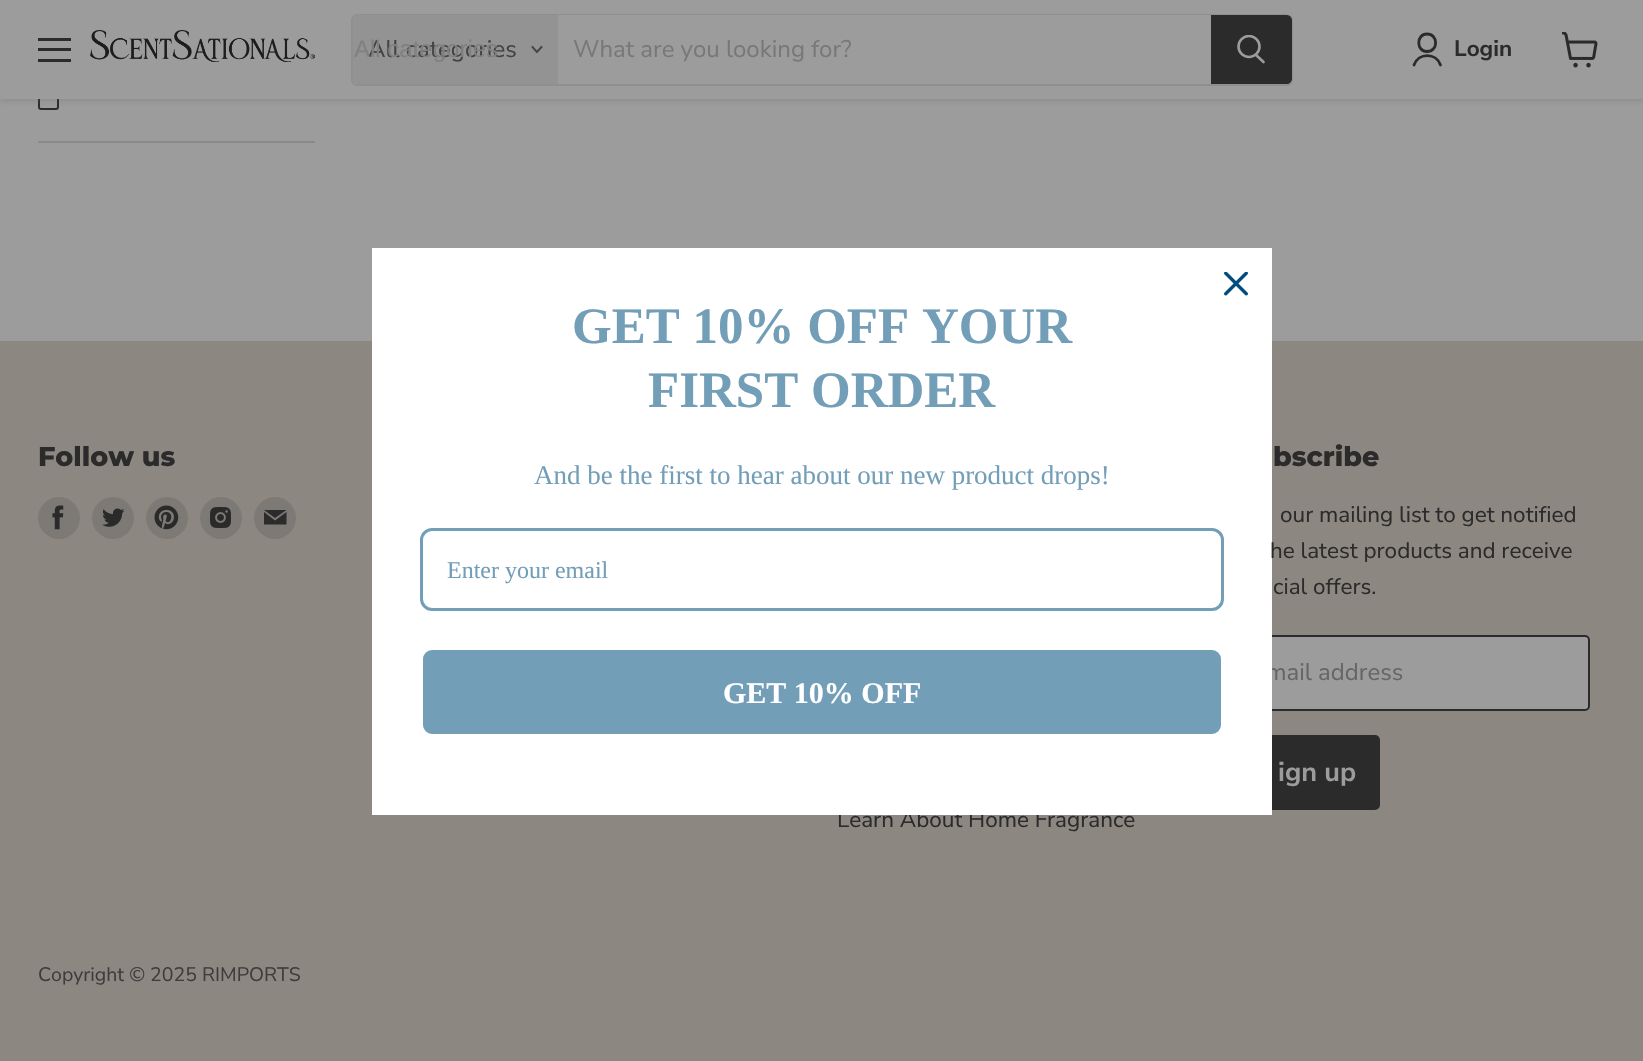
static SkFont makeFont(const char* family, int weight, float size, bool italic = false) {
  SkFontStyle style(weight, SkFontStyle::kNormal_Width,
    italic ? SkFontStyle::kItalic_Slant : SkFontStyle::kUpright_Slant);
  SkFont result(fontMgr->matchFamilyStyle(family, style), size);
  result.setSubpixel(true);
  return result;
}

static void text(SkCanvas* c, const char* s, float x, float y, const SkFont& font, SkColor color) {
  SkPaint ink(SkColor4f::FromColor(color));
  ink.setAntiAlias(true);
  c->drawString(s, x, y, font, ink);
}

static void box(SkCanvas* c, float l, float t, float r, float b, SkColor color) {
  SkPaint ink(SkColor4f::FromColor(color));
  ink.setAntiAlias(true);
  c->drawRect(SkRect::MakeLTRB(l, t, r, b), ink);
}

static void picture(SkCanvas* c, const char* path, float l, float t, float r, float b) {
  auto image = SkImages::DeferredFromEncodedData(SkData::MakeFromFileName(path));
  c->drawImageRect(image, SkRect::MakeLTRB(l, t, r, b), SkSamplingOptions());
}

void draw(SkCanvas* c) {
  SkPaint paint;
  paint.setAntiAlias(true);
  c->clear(0xff9c9c9c);
  paint.setStyle(SkPaint::kStroke_Style);
  paint.setStrokeWidth(2);
  paint.setColor(0xff2b2b2b);
  c->drawRoundRect(SkRect::MakeLTRB(39, 90, 58, 109), 2, 2, paint);
  paint.setStyle(SkPaint::kFill_Style);
  paint.setColor(0x405c5c5c);
  paint.setMaskFilter(SkMaskFilter::MakeBlur(kNormal_SkBlurStyle, 3));
  c->drawRect(SkRect::MakeLTRB(0, 2, 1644, 101), paint);
  paint.setMaskFilter(nullptr);
  box(c, 0, 0, 1643, 99, 0xff9c9c9c);
  box(c, 38, 38, 71, 41, 0xff2b2b2b);
  box(c, 38, 48, 71, 51, 0xff2b2b2b);
  box(c, 38, 59, 71, 62, 0xff2b2b2b);
  picture(c, "img_01.png", 90, 30, 315, 62);
  paint.setStyle(SkPaint::kStroke_Style);
  paint.setColor(0x335c5c5c);
  c->drawRoundRect(SkRect::MakeLTRB(352, 15, 1292, 85), 5, 5, paint);
  paint.setStyle(SkPaint::kFill_Style);
  paint.setColor(0xff939393);
  c->drawPath(SkPathBuilder().moveTo(358, 15).lineTo(558, 15).lineTo(558, 84).lineTo(358, 84).cubicTo(355, 84, 353, 82, 353, 79).lineTo(353, 20).cubicTo(353, 17, 355, 15, 358, 15).close().detach(), paint);
  SkFont face1 = makeFont("Nunito Sans", 400, 24);
  text(c, "All categories", 368, 57, face1, 0xff434343);
  SkFont face2 = makeFont("Liberation Sans", 400, 24);
  text(c, "All categories", 354, 57, face2, 0xff808080);
  paint.setStyle(SkPaint::kStroke_Style);
  paint.setStrokeWidth(1.9f);
  paint.setStrokeCap(SkPaint::kSquare_Cap);
  paint.setColor(0xff434343);
  c->drawPath(SkPathBuilder().moveTo(537, 52).lineTo(541.5f, 47).moveTo(537, 52).lineTo(532.5f, 47).detach(), paint);
  box(c, 558, 15, 1211, 16, 0xff9c9c9c);
  text(c, "What are you looking for?", 573, 57, face1, 0xff787878);
  paint.setStyle(SkPaint::kFill_Style);
  paint.setColor(0xff2b2b2b);
  c->drawPath(SkPathBuilder().moveTo(1212, 16).lineTo(1287, 16).cubicTo(1289, 16, 1291, 18, 1291, 20).lineTo(1291, 79).cubicTo(1291, 81, 1289, 83, 1287, 83).lineTo(1212, 83).close().detach(), paint);
  paint.setStyle(SkPaint::kStroke_Style);
  paint.setStrokeWidth(2);
  paint.setStrokeCap(SkPaint::kButt_Cap);
  c->drawPath(SkPathBuilder().moveTo(1212, 16).lineTo(1287, 16).cubicTo(1289, 16, 1291, 18, 1291, 20).lineTo(1291, 79).cubicTo(1291, 81, 1289, 83, 1287, 83).lineTo(1212, 83).close().detach(), paint);
  paint.setStrokeWidth(2.6f);
  paint.setStrokeCap(SkPaint::kRound_Cap);
  paint.setColor(0xff9c9c9c);
  c->drawPath(SkPathBuilder().moveTo(1263.5f, 62).lineTo(1256, 55).detach(), paint);
  c->save();
  c->clipRect(SkRect::MakeLTRB(1236, 35, 1266, 66));
  paint.setStrokeCap(SkPaint::kButt_Cap);
  c->drawCircle(1249, 46.5f, 10.5f, paint);
  c->restore();
  paint.setStrokeWidth(2.8f);
  paint.setStrokeCap(SkPaint::kRound_Cap);
  paint.setStrokeJoin(SkPaint::kRound_Join);
  paint.setColor(0xff2b2b2b);
  c->drawPath(SkPathBuilder().moveTo(1427, 51.5f).cubicTo(1438.5f, 51.5f, 1438.5f, 34, 1427, 34).cubicTo(1416, 34, 1416, 51.5f, 1427, 51.5f).close().moveTo(1440.5f, 65).cubicTo(1436, 52.5f, 1418.5f, 52.5f, 1414, 65).detach(), paint);
  SkFont face3 = makeFont("Nunito Sans", 700, 22.5f);
  text(c, "Login", 1454, 56, face3, 0xff2b2b2b);
  picture(c, "img_02.png", 1562, 32, 1598, 68);
  box(c, 38, 141, 315, 143, 0xff898989);
  box(c, 0, 341, 1643, 1061, 0xff8c8781);
  paint.setStyle(SkPaint::kFill_Style);
  paint.setColor(0xff9c9c9c);
  c->drawRoundRect(SkRect::MakeLTRB(1239, 636, 1589, 710), 4, 4, paint);
  paint.setStyle(SkPaint::kStroke_Style);
  paint.setStrokeWidth(2);
  paint.setStrokeCap(SkPaint::kButt_Cap);
  paint.setStrokeJoin(SkPaint::kMiter_Join);
  paint.setColor(0xff2b2b2b);
  c->drawRoundRect(SkRect::MakeLTRB(1239, 636, 1589, 710), 4, 4, paint);
  text(c, "mail address", 1266, 680, face1, 0xff666666);
  paint.setStyle(SkPaint::kFill_Style);
  c->drawRoundRect(SkRect::MakeLTRB(1239, 736, 1379, 809), 4, 4, paint);
  paint.setStyle(SkPaint::kStroke_Style);
  c->drawRoundRect(SkRect::MakeLTRB(1239, 736, 1379, 809), 4, 4, paint);
  SkFont face4 = makeFont("Nunito Sans", 400, 22.5f);
  text(c, "Learn About Home Fragrance", 837, 827, face4, 0xff2b2b2b);
  box(c, 372, 248, 1272, 815, 0xffffffff);
  picture(c, "img_03.png", 1224, 272, 1248, 296);
  SkFont face5 = makeFont("Liberation Serif", 700, 51);
  text(c, "GET 10% OFF YOUR", 572, 343, face5, 0xff739eb8);
  text(c, "FIRST ORDER", 648, 407, face5, 0xff739eb8);
  SkFont face6 = makeFont("Liberation Serif", 400, 27);
  text(c, "And be the first to hear about our new product drops!", 534, 484, face6, 0xff739eb8);
  paint.setStrokeWidth(3);
  paint.setColor(0xff739eb8);
  c->drawRoundRect(SkRect::MakeLTRB(421.5f, 529.5f, 1222.5f, 609.5f), 10.5f, 10.5f, paint);
  SkFont face7 = makeFont("Liberation Serif", 400, 24);
  text(c, "Enter your email", 447, 578, face7, 0xff739eb8);
  paint.setStyle(SkPaint::kFill_Style);
  c->drawRoundRect(SkRect::MakeLTRB(421.5f, 648.5f, 1222.5f, 735.5f), 10.5f, 10.5f, paint);
  paint.setStyle(SkPaint::kStroke_Style);
  paint.setColor(0xffffffff);
  c->drawRoundRect(SkRect::MakeLTRB(421.5f, 648.5f, 1222.5f, 735.5f), 10.5f, 10.5f, paint);
  SkFont face8 = makeFont("Liberation Serif", 700, 30);
  text(c, "GET 10% OFF", 723, 703, face8, 0xffffffff);
  SkFont face9 = makeFont("Montserrat", 800, 27);
  text(c, "Follow us", 38, 466, face9, 0xff2b2b2b);
  paint.setStyle(SkPaint::kFill_Style);
  paint.setColor(0xff7d7974);
  c->drawCircle(59, 518, 21, paint);
  picture(c, "img_04.png", 52, 505, 64, 530);
  c->drawCircle(113, 518, 21, paint);
  picture(c, "img_05.png", 102, 508, 125, 527);
  c->drawCircle(167, 518, 21, paint);
  picture(c, "img_06.png", 154, 505, 179, 530);
  c->drawCircle(221, 518, 21, paint);
  picture(c, "img_07.png", 210, 507, 231, 528);
  c->drawCircle(275, 518, 21, paint);
  paint.setColor(0xff2b2b2b);
  c->drawPath(SkPathBuilder(SkPathFillType::kEvenOdd).moveTo(286.5f, 510).lineTo(264, 510).lineTo(275, 518).close().moveTo(275, 520.5f).lineTo(264, 512).lineTo(264, 524.5f).lineTo(286.5f, 524.5f).lineTo(286.5f, 512).close().detach(), paint);
  text(c, "bscribe", 1273, 466, face9, 0xff2b2b2b);
  text(c, "our mailing list to get notified", 1280, 522, face4, 0xff2b2b2b);
  text(c, "he latest products and receive", 1270, 558, face4, 0xff2b2b2b);
  text(c, "cial offers.", 1273, 594, face4, 0xff2b2b2b);
  SkFont face10 = makeFont("Nunito Sans", 700, 27);
  text(c, "ign up", 1278, 781, face10, 0xff9c9c9c);
  SkFont face11 = makeFont("Nunito Sans", 400, 19.5f);
  text(c, "Copyright © 2025 RIMPORTS", 38, 981, face11, 0xff3e3d3c);
}
